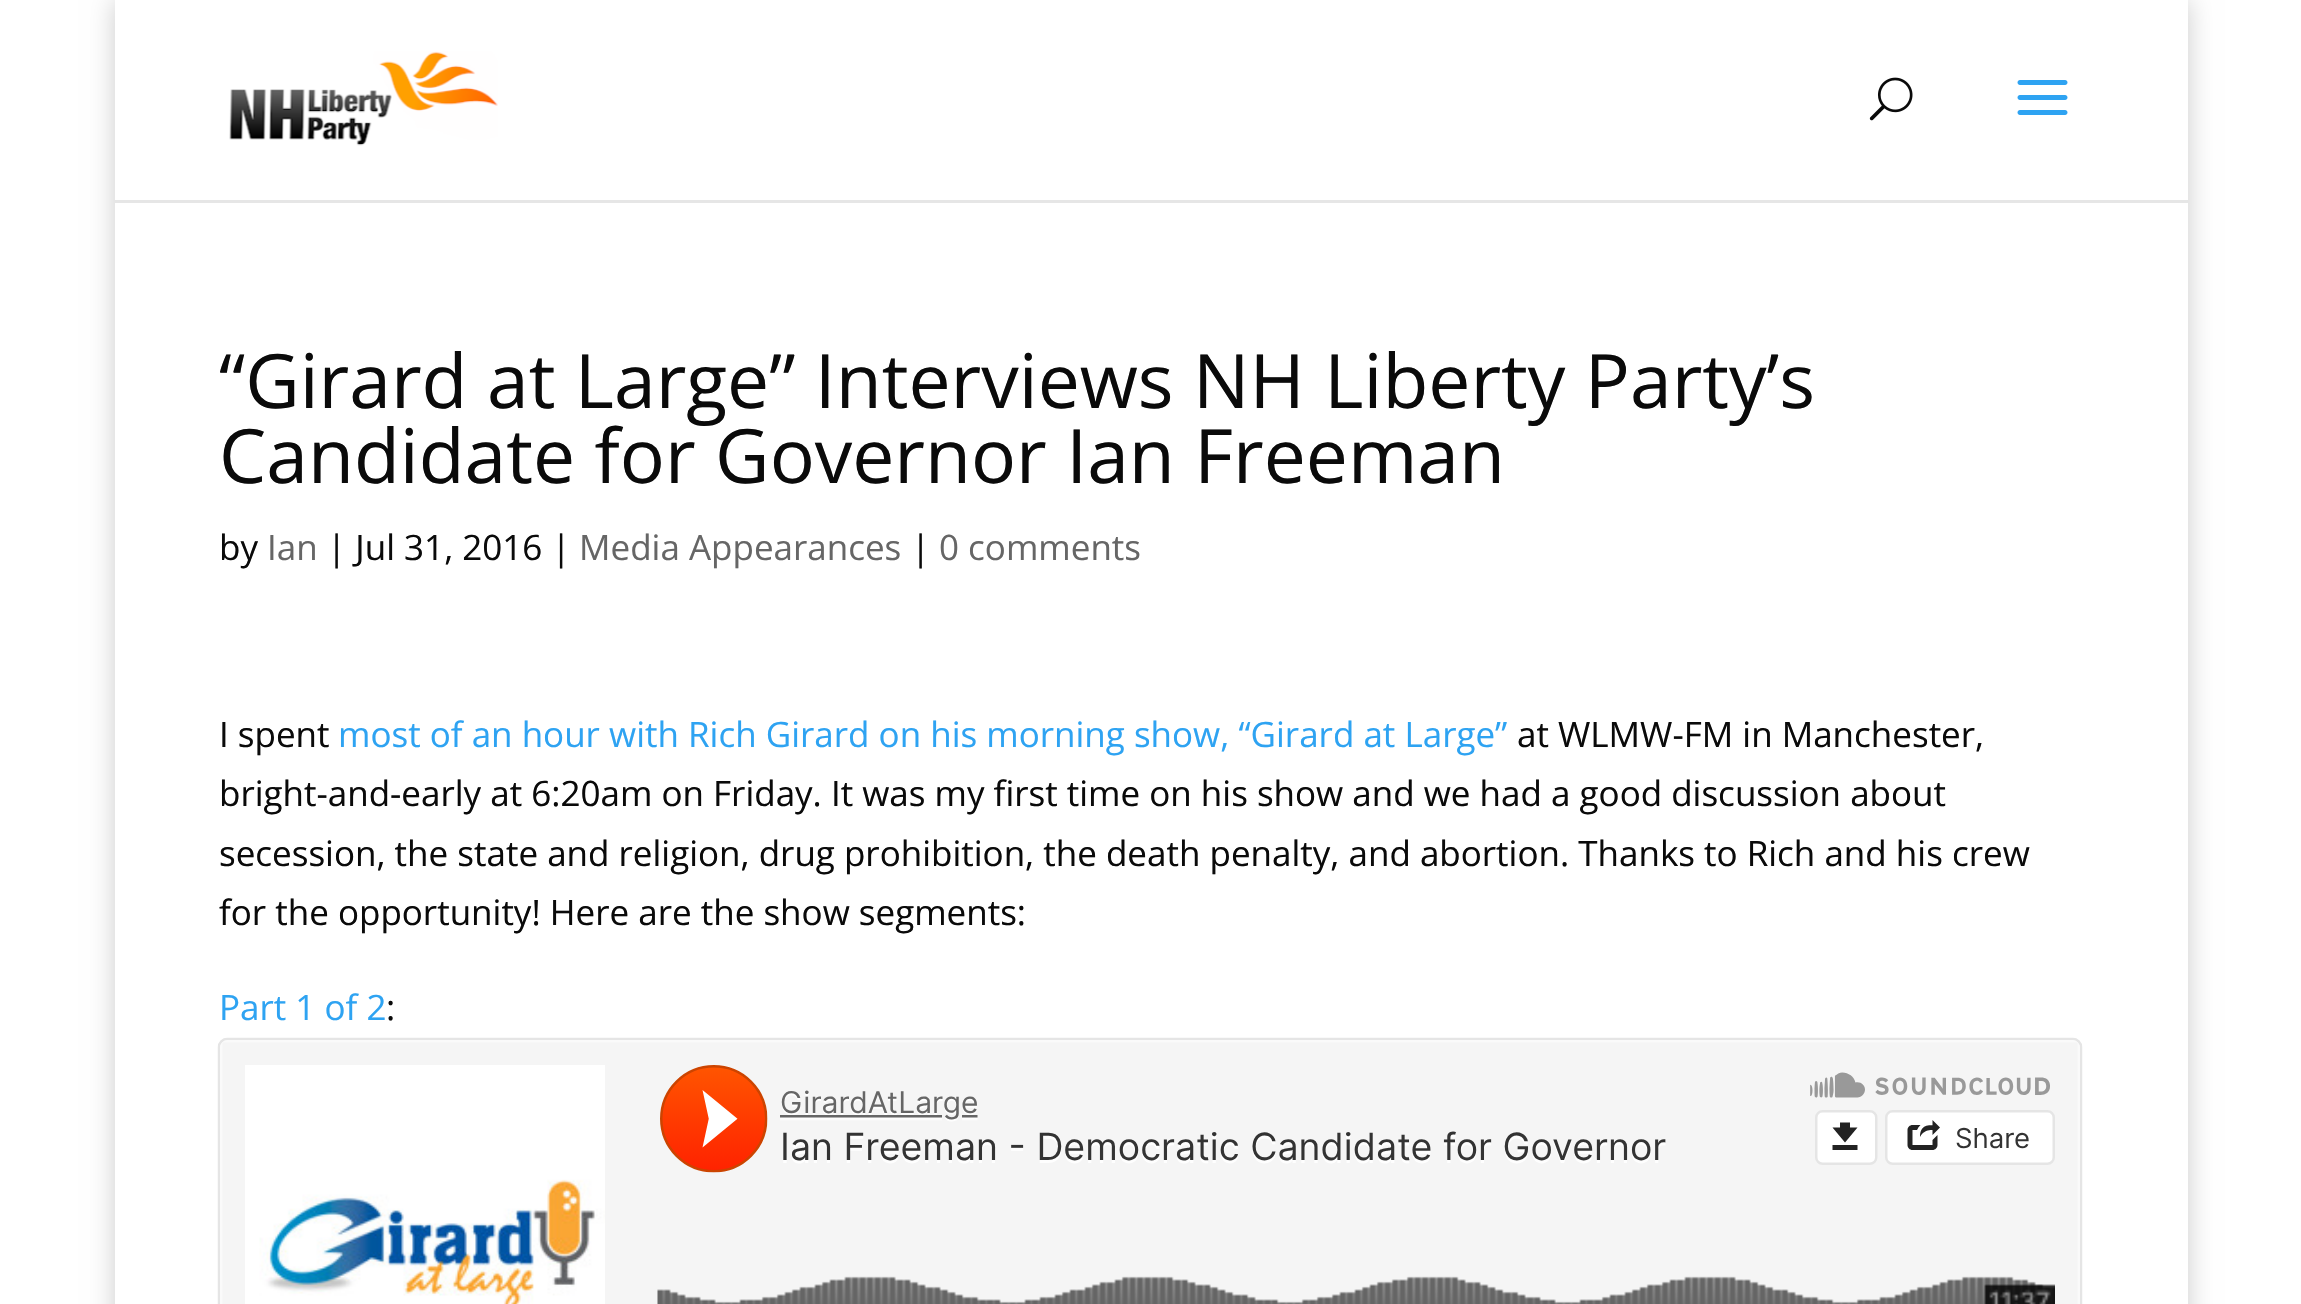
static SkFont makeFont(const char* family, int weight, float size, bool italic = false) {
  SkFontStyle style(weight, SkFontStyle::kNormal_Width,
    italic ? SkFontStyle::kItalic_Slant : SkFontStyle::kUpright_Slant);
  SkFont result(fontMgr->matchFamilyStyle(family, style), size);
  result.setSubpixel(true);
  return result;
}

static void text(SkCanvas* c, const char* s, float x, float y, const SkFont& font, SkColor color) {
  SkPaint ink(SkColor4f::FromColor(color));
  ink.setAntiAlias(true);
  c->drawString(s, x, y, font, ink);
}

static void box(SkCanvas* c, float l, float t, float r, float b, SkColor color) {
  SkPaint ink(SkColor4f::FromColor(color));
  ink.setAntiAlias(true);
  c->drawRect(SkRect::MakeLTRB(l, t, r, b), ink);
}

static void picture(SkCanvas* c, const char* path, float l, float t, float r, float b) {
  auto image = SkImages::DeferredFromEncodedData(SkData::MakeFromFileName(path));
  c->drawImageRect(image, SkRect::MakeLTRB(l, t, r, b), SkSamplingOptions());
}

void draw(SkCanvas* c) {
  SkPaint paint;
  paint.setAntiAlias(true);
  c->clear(0xffffffff);
  paint.setColor(0x33000000);
  paint.setMaskFilter(SkMaskFilter::MakeBlur(kNormal_SkBlurStyle, 12.5f));
  c->drawRect(SkRect::MakeLTRB(115, 0, 2188, 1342), paint);
  paint.setMaskFilter(nullptr);
  paint.setColor(0xffe6e6e6);
  c->drawPath(SkPathBuilder().moveTo(115, 200).lineTo(115, 203).lineTo(2188, 203).lineTo(2188, 3).lineTo(2188, 200).close().detach(), paint);
  box(c, 115, 0, 2188, 200, 0xffffffff);
  picture(c, "img_01.png", 229, 51, 498, 146);
  picture(c, "img_02.png", 1869, 77, 1913, 121);
  picture(c, "img_03.png", 2017, 80, 2068, 115);
  box(c, 115, 203, 2188, 1304, 0xffffffff);
  SkFont face1 = makeFont("Open Sans", 400, 75);
  text(c, "“Girard at Large” Interviews NH Liberty Party’s", 219, 408, face1, 0xff0a0a0a);
  text(c, "Candidate for Governor Ian Freeman", 219, 483, face1, 0xff0a0a0a);
  SkFont face2 = makeFont("Open Sans", 400, 35);
  text(c, "by", 219, 560, face2, 0xff0a0a0a);
  text(c, "Ian", 267, 560, face2, 0xff666666);
  text(c, "| Jul 31, 2016 |", 327, 560, face2, 0xff0a0a0a);
  text(c, "Media Appearances", 579, 560, face2, 0xff666666);
  text(c, "|", 911, 560, face2, 0xff0a0a0a);
  text(c, "0 comments", 939, 560, face2, 0xff666666);
  text(c, "I spent", 219, 747, face2, 0xff0a0a0a);
  text(c, "most of an hour with Rich Girard on his morning show, “Girard at Large”", 338, 747, face2, 0xff2ea3f2);
  text(c, "at WLMW-FM in Manchester,", 1517, 747, face2, 0xff0a0a0a);
  text(c, "bright-and-early at 6:20am on Friday. It was my first time on his show and we had a good discussion about", 219, 806, face2, 0xff0a0a0a);
  text(c, "secession, the state and religion, drug prohibition, the death penalty, and abortion. Thanks to Rich and his crew", 219, 866, face2, 0xff0a0a0a);
  text(c, "for the opportunity! Here are the show segments:", 219, 925, face2, 0xff0a0a0a);
  text(c, "Part 1 of 2", 219, 1020, face2, 0xff2ea3f2);
  text(c, ":", 386, 1020, face2, 0xff0a0a0a);
  picture(c, "img_04.png", 217, 1037, 2083, 1304);
}
